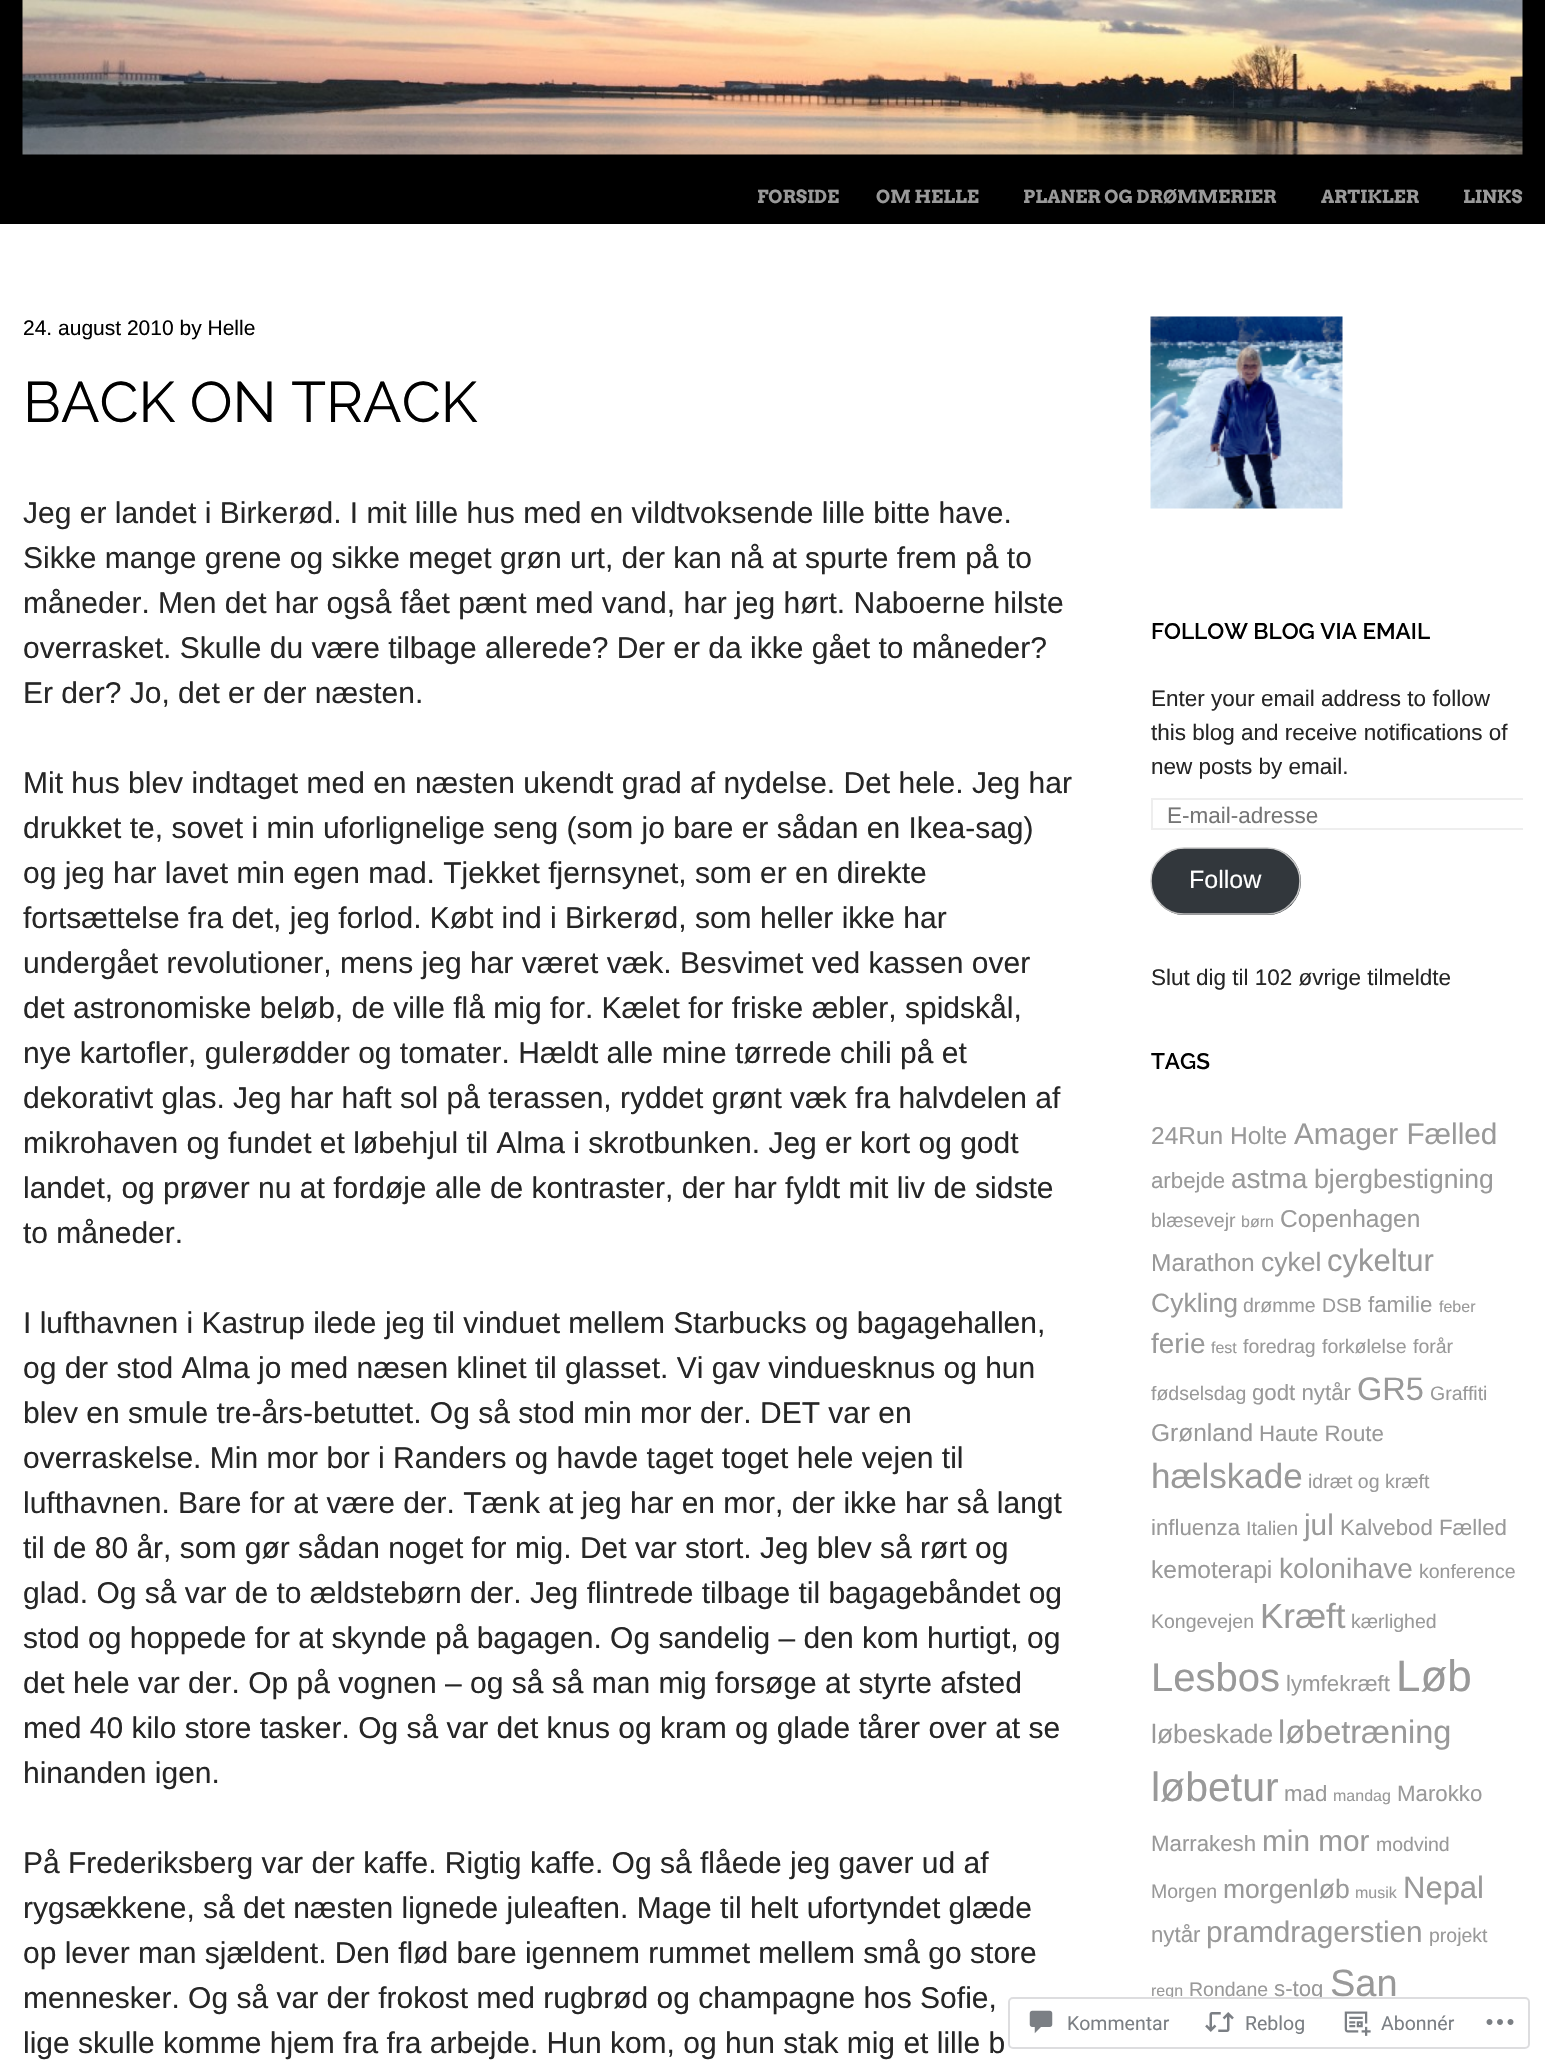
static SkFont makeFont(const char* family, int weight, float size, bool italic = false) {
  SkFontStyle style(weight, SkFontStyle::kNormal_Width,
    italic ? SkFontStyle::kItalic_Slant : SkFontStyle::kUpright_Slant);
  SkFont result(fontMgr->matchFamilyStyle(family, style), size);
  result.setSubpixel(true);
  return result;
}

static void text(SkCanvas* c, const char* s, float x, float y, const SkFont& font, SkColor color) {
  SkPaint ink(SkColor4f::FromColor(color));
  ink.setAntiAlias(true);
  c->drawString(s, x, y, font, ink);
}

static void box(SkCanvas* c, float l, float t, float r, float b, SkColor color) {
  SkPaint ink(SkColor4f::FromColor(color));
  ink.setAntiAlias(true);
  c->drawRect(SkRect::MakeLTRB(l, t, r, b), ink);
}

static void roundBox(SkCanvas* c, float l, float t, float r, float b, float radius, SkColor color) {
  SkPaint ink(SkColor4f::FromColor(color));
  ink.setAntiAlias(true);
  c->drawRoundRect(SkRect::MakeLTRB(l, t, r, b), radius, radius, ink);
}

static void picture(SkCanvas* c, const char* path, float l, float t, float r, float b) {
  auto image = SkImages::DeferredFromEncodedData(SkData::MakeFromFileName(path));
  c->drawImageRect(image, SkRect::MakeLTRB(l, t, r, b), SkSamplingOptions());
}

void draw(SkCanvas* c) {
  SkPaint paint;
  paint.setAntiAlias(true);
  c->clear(0xffffffff);
  box(c, 0, 0, 1545, 224, 0xff000000);
  picture(c, "img_01.png", 22, 0, 1523, 155);
  SkFont face1 = makeFont("Arvo", 700, 18);
  text(c, "FORSIDE", 757, 203, face1, 0xff999999);
  text(c, "OM HELLE", 876, 203, face1, 0xff999999);
  text(c, "PLANER OG DRØMMERIER", 1023, 203, face1, 0xff999999);
  text(c, "ARTIKLER", 1321, 203, face1, 0xff999999);
  text(c, "LINKS", 1463, 203, face1, 0xff999999);
  SkFont face2 = makeFont("Liberation Sans", 400, 21);
  text(c, "24. august 2010 by Helle", 23, 335, face2, 0xff000000);
  SkFont face3 = makeFont("Raleway", 400, 57);
  text(c, "BACK ON TRACK", 23, 422, face3, 0xff000000);
  SkFont face4 = makeFont("Liberation Sans", 400, 30);
  text(c, "Jeg er landet i Birkerød. I mit lille hus med en vildtvoksende lille bitte have.", 23, 523, face4, 0xff262626);
  text(c, "Sikke mange grene og sikke meget grøn urt, der kan nå at spurte frem på to", 23, 568, face4, 0xff262626);
  text(c, "måneder. Men det har også fået pænt med vand, har jeg hørt. Naboerne hilste", 23, 613, face4, 0xff262626);
  text(c, "overrasket. Skulle du være tilbage allerede? Der er da ikke gået to måneder?", 23, 658, face4, 0xff262626);
  text(c, "Er der? Jo, det er der næsten.", 23, 703, face4, 0xff262626);
  text(c, "Mit hus blev indtaget med en næsten ukendt grad af nydelse. Det hele. Jeg har", 23, 793, face4, 0xff262626);
  text(c, "drukket te, sovet i min uforlignelige seng (som jo bare er sådan en Ikea-sag)", 23, 838, face4, 0xff262626);
  text(c, "og jeg har lavet min egen mad. Tjekket fjernsynet, som er en direkte", 23, 883, face4, 0xff262626);
  text(c, "fortsættelse fra det, jeg forlod. Købt ind i Birkerød, som heller ikke har", 23, 928, face4, 0xff262626);
  text(c, "undergået revolutioner, mens jeg har været væk. Besvimet ved kassen over", 23, 973, face4, 0xff262626);
  text(c, "det astronomiske beløb, de ville flå mig for. Kælet for friske æbler, spidskål,", 23, 1018, face4, 0xff262626);
  text(c, "nye kartofler, gulerødder og tomater. Hældt alle mine tørrede chili på et", 23, 1063, face4, 0xff262626);
  text(c, "dekorativt glas. Jeg har haft sol på terassen, ryddet grønt væk fra halvdelen af", 23, 1108, face4, 0xff262626);
  text(c, "mikrohaven og fundet et løbehjul til Alma i skrotbunken. Jeg er kort og godt", 23, 1153, face4, 0xff262626);
  text(c, "landet, og prøver nu at fordøje alle de kontraster, der har fyldt mit liv de sidste", 23, 1198, face4, 0xff262626);
  text(c, "to måneder.", 23, 1243, face4, 0xff262626);
  text(c, "I lufthavnen i Kastrup ilede jeg til vinduet mellem Starbucks og bagagehallen,", 23, 1333, face4, 0xff262626);
  text(c, "og der stod Alma jo med næsen klinet til glasset. Vi gav vinduesknus og hun", 23, 1378, face4, 0xff262626);
  text(c, "blev en smule tre-års-betuttet. Og så stod min mor der. DET var en", 23, 1423, face4, 0xff262626);
  text(c, "overraskelse. Min mor bor i Randers og havde taget toget hele vejen til", 23, 1468, face4, 0xff262626);
  text(c, "lufthavnen. Bare for at være der. Tænk at jeg har en mor, der ikke har så langt", 23, 1513, face4, 0xff262626);
  text(c, "til de 80 år, som gør sådan noget for mig. Det var stort. Jeg blev så rørt og", 23, 1558, face4, 0xff262626);
  text(c, "glad. Og så var de to ældstebørn der. Jeg flintrede tilbage til bagagebåndet og", 23, 1603, face4, 0xff262626);
  text(c, "stod og hoppede for at skynde på bagagen. Og sandelig – den kom hurtigt, og", 23, 1648, face4, 0xff262626);
  text(c, "det hele var der. Op på vognen – og så så man mig forsøge at styrte afsted", 23, 1693, face4, 0xff262626);
  text(c, "med 40 kilo store tasker. Og så var det knus og kram og glade tårer over at se", 23, 1738, face4, 0xff262626);
  text(c, "hinanden igen.", 23, 1783, face4, 0xff262626);
  text(c, "På Frederiksberg var der kaffe. Rigtig kaffe. Og så flåede jeg gaver ud af", 23, 1873, face4, 0xff262626);
  text(c, "rygsækkene, så det næsten lignede juleaften. Mage til helt ufortyndet glæde", 23, 1918, face4, 0xff262626);
  text(c, "op lever man sjældent. Den flød bare igennem rummet mellem små go store", 23, 1963, face4, 0xff262626);
  text(c, "mennesker. Og så var der frokost med rugbrød og champagne hos Sofie,", 23, 2008, face4, 0xff262626);
  text(c, "lige skulle komme hjem fra fra arbejde. Hun kom, og hun stak mig et lille b", 23, 2053, face4, 0xff262626);
  picture(c, "img_02.png", 1150, 316, 1343, 509);
  SkFont face5 = makeFont("Raleway", 600, 22.5f);
  text(c, "FOLLOW BLOG VIA EMAIL", 1151, 639, face5, 0xff000000);
  SkFont face6 = makeFont("Liberation Sans", 400, 22.5f);
  text(c, "Enter your email address to follow", 1151, 706, face6, 0xff262626);
  text(c, "this blog and receive notifications of", 1151, 740, face6, 0xff262626);
  text(c, "new posts by email.", 1151, 774, face6, 0xff262626);
  c->save();
  c->clipRect(SkRect::MakeLTRB(1148, 269, 1523, 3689));
  paint.setStyle(SkPaint::kStroke_Style);
  paint.setStrokeWidth(2);
  paint.setColor(0xffeeeeee);
  c->drawRect(SkRect::MakeLTRB(1152, 799, 1534, 829), paint);
  c->restore();
  text(c, "E-mail-adresse", 1167, 823, face6, 0xff757575);
  roundBox(c, 1151, 848, 1301, 915, 33.5f, 0xff32373c);
  paint.setStrokeWidth(1.5f);
  paint.setColor(0xffbbbbbb);
  c->drawPath(SkPathBuilder().moveTo(1290, 904.5f).cubicTo(1284, 911, 1275.5f, 914, 1267, 914).lineTo(1184, 914).cubicTo(1175.5f, 914, 1167, 911, 1161, 904.5f).detach(), paint);
  paint.setColor(0xffcccccc);
  c->drawPath(SkPathBuilder().moveTo(1161, 904.5f).cubicTo(1154.5f, 898.5f, 1151, 890, 1151, 881).cubicTo(1151, 872.5f, 1154.5f, 864, 1161, 858).cubicTo(1167, 851.5f, 1175.5f, 848, 1184, 848).lineTo(1267, 848).cubicTo(1275.5f, 848, 1284, 851.5f, 1290, 858).cubicTo(1296.5f, 864, 1300, 872.5f, 1300, 881).cubicTo(1300, 890, 1296.5f, 898.5f, 1290, 904.5f).detach(), paint);
  SkFont face7 = makeFont("Liberation Sans", 400, 25);
  text(c, "Follow", 1189, 888, face7, 0xffffffff);
  text(c, "Slut dig til 102 øvrige tilmeldte", 1151, 985, face6, 0xff262626);
  text(c, "TAGS", 1151, 1069, face5, 0xff000000);
  SkFont face8 = makeFont("Liberation Sans", 400, 24.5f);
  text(c, "24Run Holte", 1151, 1144, face8, 0xff999999);
  SkFont face9 = makeFont("Liberation Sans", 400, 29.75f);
  text(c, "Amager Fælled", 1294, 1144, face9, 0xff999999);
  SkFont face10 = makeFont("Liberation Sans", 400, 22.25f);
  text(c, "arbejde", 1151, 1188, face10, 0xff999999);
  SkFont face11 = makeFont("Liberation Sans", 400, 28);
  text(c, "astma", 1231, 1188, face11, 0xff999999);
  SkFont face12 = makeFont("Liberation Sans", 400, 26.5f);
  text(c, "bjergbestigning", 1314, 1188, face12, 0xff999999);
  SkFont face13 = makeFont("Liberation Sans", 400, 19.5f);
  text(c, "blæsevejr", 1151, 1227, face13, 0xff999999);
  SkFont face14 = makeFont("Liberation Sans", 400, 16);
  text(c, "børn", 1241, 1227, face14, 0xff999999);
  text(c, "Copenhagen", 1280, 1227, face8, 0xff999999);
  text(c, "Marathon", 1151, 1271, face8, 0xff999999);
  text(c, "cykel", 1261, 1271, face12, 0xff999999);
  SkFont face15 = makeFont("Liberation Sans", 400, 31);
  text(c, "cykeltur", 1327, 1271, face15, 0xff999999);
  text(c, "Cykling", 1151, 1312, face12, 0xff999999);
  text(c, "drømme", 1243, 1312, face13, 0xff999999);
  text(c, "DSB", 1322, 1312, face13, 0xff999999);
  text(c, "familie", 1368, 1312, face10, 0xff999999);
  text(c, "feber", 1439, 1312, face14, 0xff999999);
  text(c, "ferie", 1151, 1353, face11, 0xff999999);
  text(c, "fest", 1211, 1353, face14, 0xff999999);
  text(c, "foredrag", 1243, 1353, face13, 0xff999999);
  text(c, "forkølelse", 1322, 1353, face13, 0xff999999);
  text(c, "forår", 1413, 1353, face13, 0xff999999);
  text(c, "fødselsdag", 1151, 1400, face13, 0xff999999);
  text(c, "godt nytår", 1252, 1400, face10, 0xff999999);
  SkFont face16 = makeFont("Liberation Sans", 400, 32.5f);
  text(c, "GR5", 1357, 1400, face16, 0xff999999);
  text(c, "Graffiti", 1430, 1400, face13, 0xff999999);
  text(c, "Grønland", 1151, 1441, face8, 0xff999999);
  text(c, "Haute Route", 1259, 1441, face10, 0xff999999);
  SkFont face17 = makeFont("Liberation Sans", 400, 35);
  text(c, "hælskade", 1151, 1488, face17, 0xff999999);
  text(c, "idræt og kræft", 1308, 1488, face13, 0xff999999);
  text(c, "influenza", 1151, 1535, face10, 0xff999999);
  text(c, "Italien", 1246, 1535, face13, 0xff999999);
  text(c, "jul", 1304, 1535, face9, 0xff999999);
  text(c, "Kalvebod Fælled", 1340, 1535, face10, 0xff999999);
  text(c, "kemoterapi", 1151, 1578, face8, 0xff999999);
  text(c, "kolonihave", 1279, 1578, face11, 0xff999999);
  text(c, "konference", 1419, 1578, face13, 0xff999999);
  text(c, "Kongevejen", 1151, 1628, face13, 0xff999999);
  text(c, "Kræft", 1260, 1628, face17, 0xff999999);
  text(c, "kærlighed", 1351, 1628, face13, 0xff999999);
  SkFont face18 = makeFont("Liberation Sans", 400, 40);
  text(c, "Lesbos", 1151, 1691, face18, 0xff999999);
  text(c, "lymfekræft", 1286, 1691, face10, 0xff999999);
  SkFont face19 = makeFont("Liberation Sans", 400, 44);
  text(c, "Løb", 1396, 1691, face19, 0xff999999);
  text(c, "løbeskade", 1151, 1743, face12, 0xff999999);
  text(c, "løbetræning", 1278, 1743, face16, 0xff999999);
  SkFont face20 = makeFont("Liberation Sans", 400, 41);
  text(c, "løbetur", 1151, 1801, face20, 0xff999999);
  text(c, "mad", 1284, 1801, face10, 0xff999999);
  text(c, "mandag", 1333, 1801, face14, 0xff999999);
  text(c, "Marokko", 1397, 1801, face10, 0xff999999);
  text(c, "Marrakesh", 1151, 1851, face10, 0xff999999);
  text(c, "min mor", 1262, 1851, face9, 0xff999999);
  text(c, "modvind", 1376, 1851, face13, 0xff999999);
  text(c, "Morgen", 1151, 1898, face13, 0xff999999);
  text(c, "morgenløb", 1223, 1898, face12, 0xff999999);
  text(c, "musik", 1355, 1898, face14, 0xff999999);
  text(c, "Nepal", 1403, 1898, face15, 0xff999999);
  text(c, "nytår", 1151, 1942, face10, 0xff999999);
  text(c, "pramdragerstien", 1206, 1942, face9, 0xff999999);
  text(c, "projekt", 1429, 1942, face13, 0xff999999);
  text(c, "regn", 1151, 1996, face14, 0xff999999);
  text(c, "Rondane", 1189, 1996, face13, 0xff999999);
  text(c, "s-tog", 1274, 1996, face10, 0xff999999);
  SkFont face21 = makeFont("Liberation Sans", 400, 38);
  text(c, "San", 1330, 1996, face21, 0xff999999);
  roundBox(c, 1008, 1997, 1530, 2049, 5, 0xfaffffff);
  paint.setStrokeWidth(2);
  paint.setColor(0xfadcdcde);
  c->drawRoundRect(SkRect::MakeLTRB(1009, 1998, 1529, 2048), 4, 4, paint);
  picture(c, "img_03.png", 1029, 2010, 1053, 2034);
  SkFont face22 = makeFont("Roboto", 400, 19.5f);
  text(c, "Kommentar", 1067, 2030, face22, 0xff7b7f84);
  picture(c, "img_04.png", 1205, 2012, 1234, 2032);
  text(c, "Reblog", 1245, 2030, face22, 0xff7b7f84);
  picture(c, "img_05.png", 1344, 2011, 1371, 2036);
  text(c, "Abonnér", 1381, 2030, face22, 0xff7b7f84);
  picture(c, "img_06.png", 1486, 2019, 1514, 2025);
}
